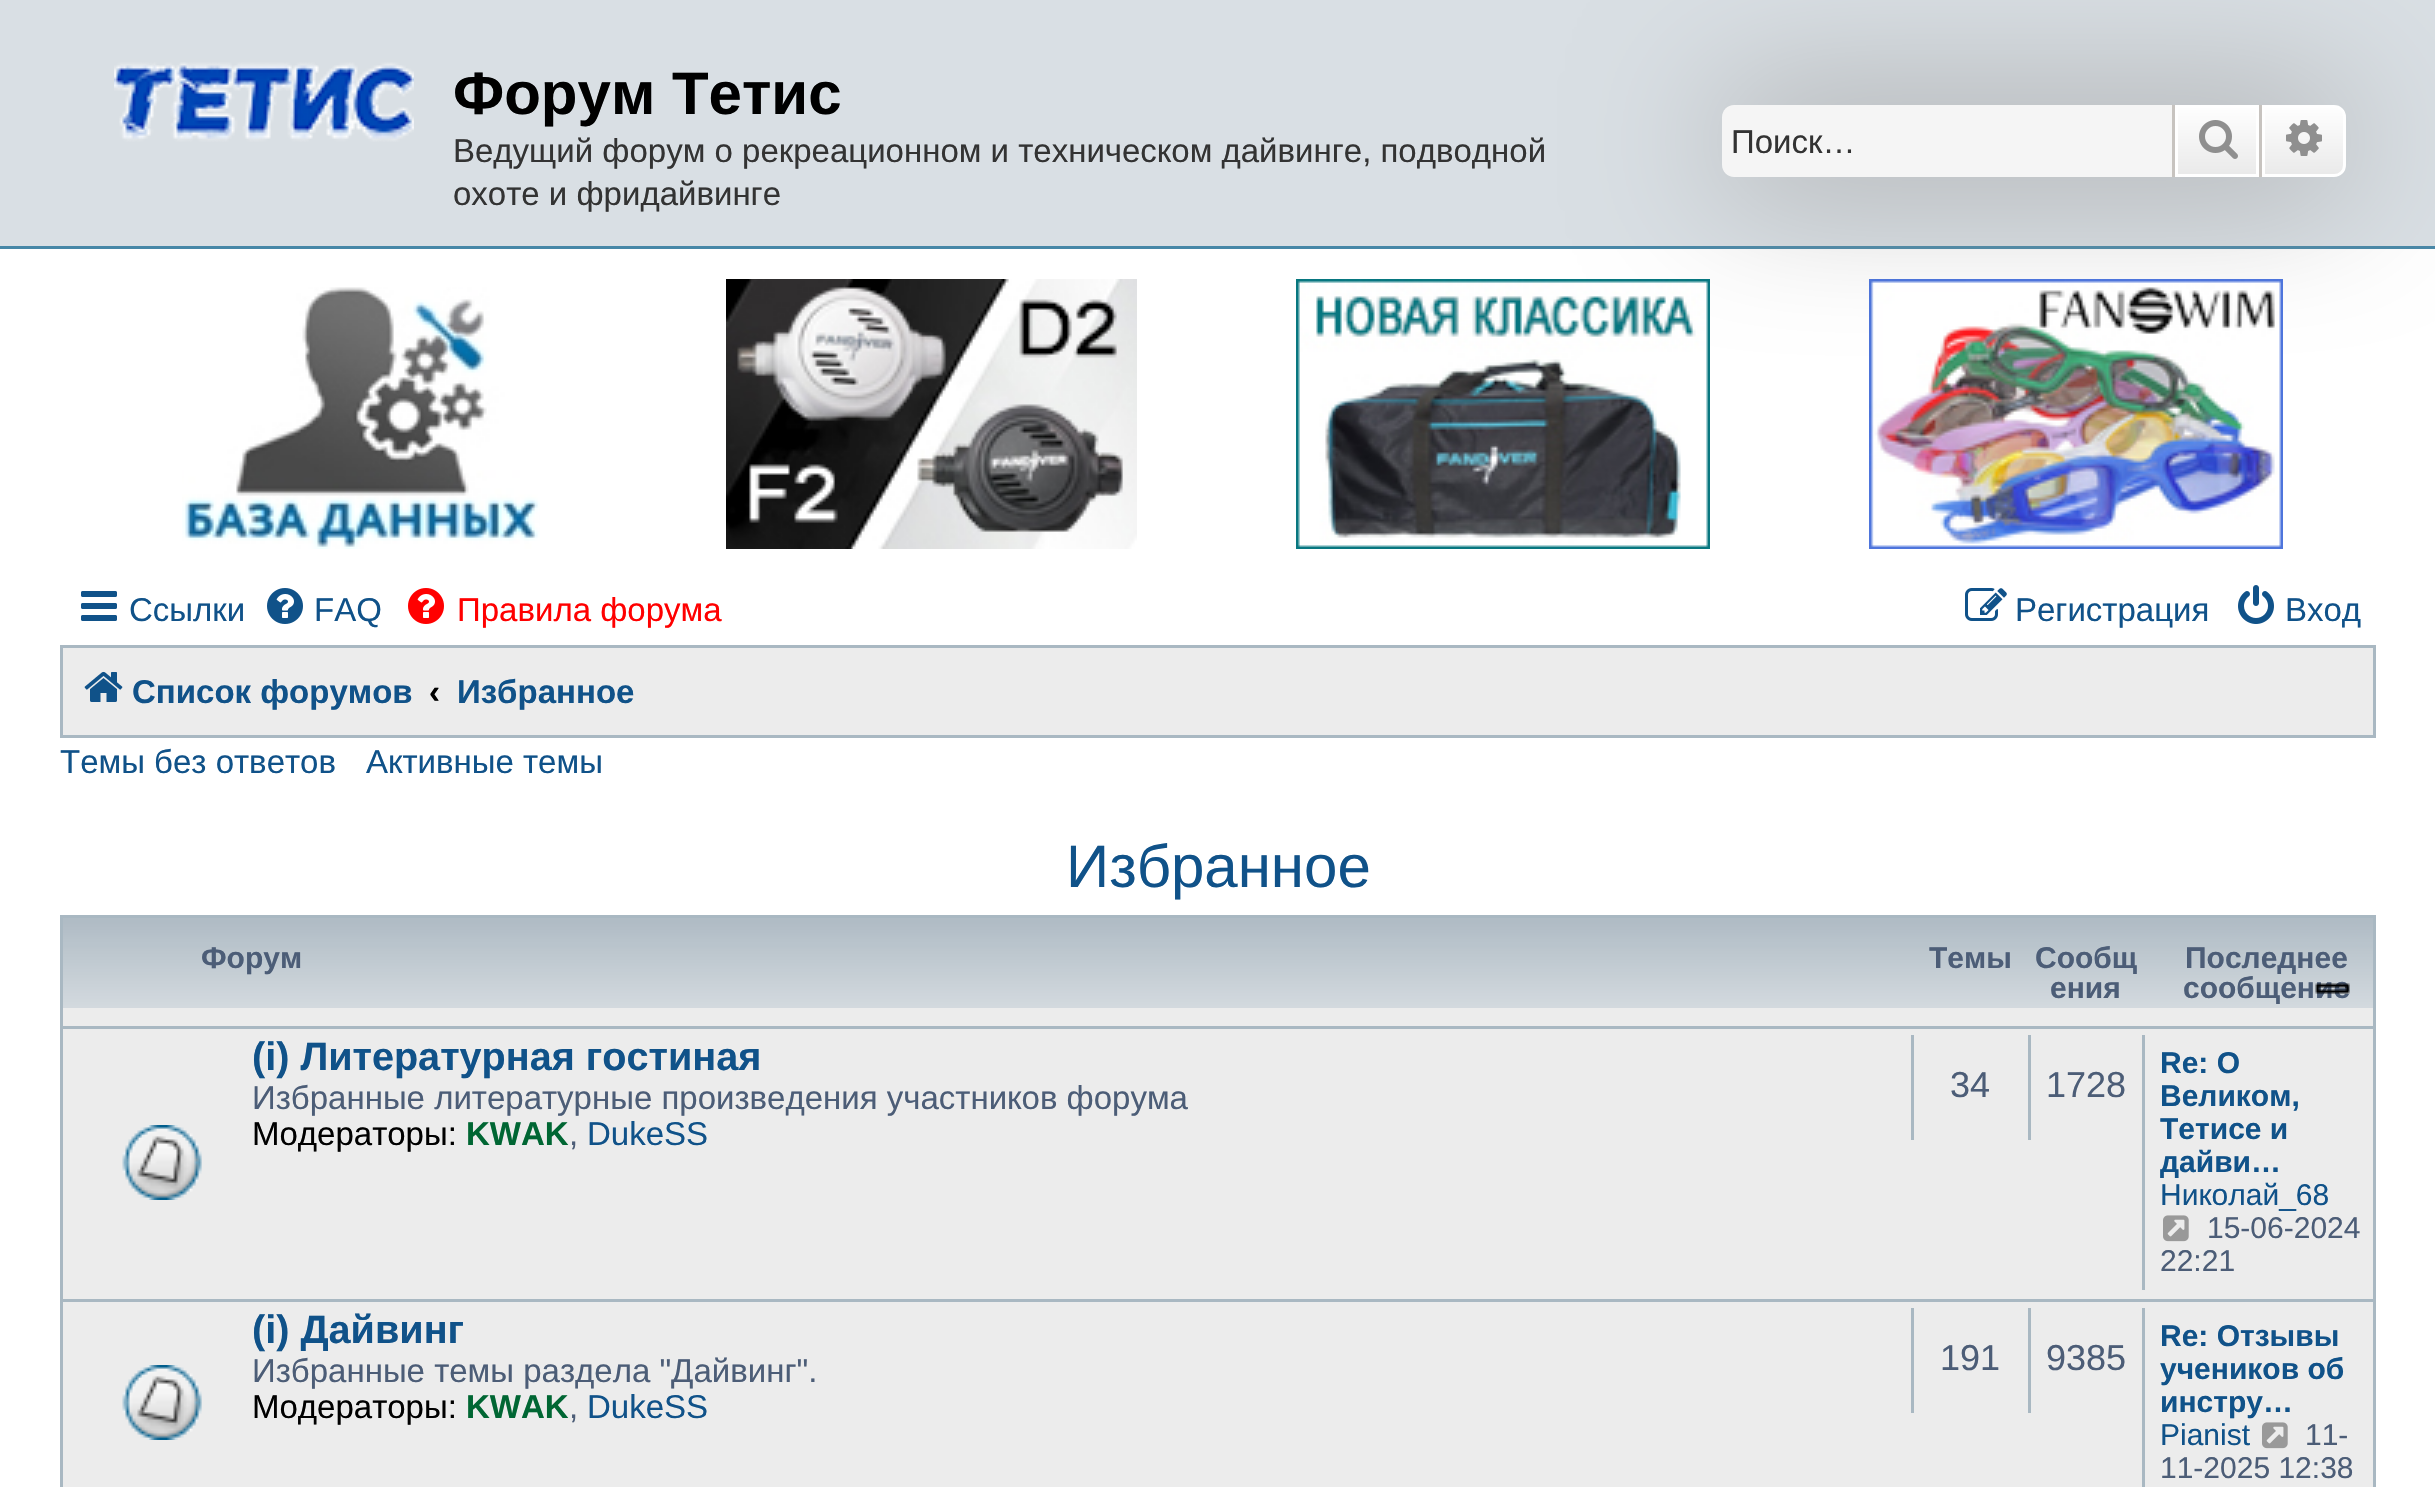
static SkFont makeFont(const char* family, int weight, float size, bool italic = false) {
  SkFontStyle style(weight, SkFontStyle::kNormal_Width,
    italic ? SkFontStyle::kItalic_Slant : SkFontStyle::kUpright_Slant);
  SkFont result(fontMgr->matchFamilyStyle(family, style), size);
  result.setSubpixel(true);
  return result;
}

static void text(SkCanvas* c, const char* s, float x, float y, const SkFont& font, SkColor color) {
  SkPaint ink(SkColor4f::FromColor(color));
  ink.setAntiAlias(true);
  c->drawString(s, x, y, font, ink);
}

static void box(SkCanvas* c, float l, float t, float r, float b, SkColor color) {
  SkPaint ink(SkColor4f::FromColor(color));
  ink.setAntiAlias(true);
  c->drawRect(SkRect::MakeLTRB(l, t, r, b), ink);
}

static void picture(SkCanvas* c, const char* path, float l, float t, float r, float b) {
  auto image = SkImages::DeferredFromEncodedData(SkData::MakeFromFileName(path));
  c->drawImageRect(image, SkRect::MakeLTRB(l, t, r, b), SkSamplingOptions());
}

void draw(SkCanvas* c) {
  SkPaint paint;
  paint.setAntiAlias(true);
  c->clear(0xffffffff);
  box(c, 0, 0, 2435, 246, 0xffd9dfe4);
  box(c, 0, 246, 2435, 249, 0xff4787a7);
  picture(c, "img_01.png", 114, 62, 414, 142);
  SkFont face1 = makeFont("Liberation Sans", 700, 60);
  text(c, "Форум Тетис", 453, 114, face1, 0xff000000);
  SkFont face2 = makeFont("Liberation Sans", 400, 33);
  text(c, "Ведущий форум о рекреационном и техническом дайвинге, подводной", 453, 162, face2, 0xff333333);
  text(c, "охоте и фридайвинге", 453, 205, face2, 0xff333333);
  paint.setColor(0xff999999);
  paint.setMaskFilter(SkMaskFilter::MakeBlur(kNormal_SkBlurStyle, 75));
  c->drawRoundRect(SkRect::MakeLTRB(1722, 105, 2346, 177), 12, 12, paint);
  paint.setMaskFilter(nullptr);
  paint.setColor(0xfff5f5f5);
  c->drawPath(SkPathBuilder().moveTo(1734, 105).lineTo(2172, 105).lineTo(2172, 177).lineTo(1734, 177).cubicTo(1727.5f, 177, 1722, 171.5f, 1722, 165).lineTo(1722, 117).cubicTo(1722, 110.5f, 1727.5f, 105, 1734, 105).close().detach(), paint);
  text(c, "Поиск…", 1731, 153, face2, 0xff333333);
  {
    const SkColor colors[] = {0xffffffff, 0xffe9e9e9};
    const float stops[] = {0, 1};
    const SkPoint ends[] = {{2217, 105}, {2217, 177}};
    paint.setShader(SkGradientShader::MakeLinear(ends, colors, stops, 2, SkTileMode::kClamp));
    paint.setAlpha(255);
  }
  c->drawRect(SkRect::MakeLTRB(2178, 108, 2256, 174), paint);
  paint.setStyle(SkPaint::kStroke_Style);
  paint.setStrokeWidth(3);
  paint.setShader(nullptr);
  paint.setColor(0xffffffff);
  c->drawRect(SkRect::MakeLTRB(2176.5f, 106.5f, 2257.5f, 175.5f), paint);
  box(c, 2259, 105, 2262, 177, 0xffc7c3bf);
  box(c, 2172, 105, 2175, 177, 0xffc7c3bf);
  picture(c, "img_02.png", 2199, 120, 2238, 159);
  paint.setStyle(SkPaint::kFill_Style);
  {
    const SkColor colors[] = {0xffffffff, 0xffe9e9e9};
    const float stops[] = {0, 1};
    const SkPoint ends[] = {{2304, 105}, {2304, 177}};
    paint.setShader(SkGradientShader::MakeLinear(ends, colors, stops, 2, SkTileMode::kClamp));
    paint.setAlpha(255);
  }
  c->drawPath(SkPathBuilder().moveTo(2263.5f, 106.5f).lineTo(2334, 106.5f).cubicTo(2340, 106.5f, 2344.5f, 111, 2344.5f, 117).lineTo(2344.5f, 165).cubicTo(2344.5f, 171, 2340, 175.5f, 2334, 175.5f).lineTo(2263.5f, 175.5f).close().detach(), paint);
  paint.setStyle(SkPaint::kStroke_Style);
  paint.setShader(nullptr);
  paint.setColor(0xffffffff);
  c->drawPath(SkPathBuilder().moveTo(2263.5f, 106.5f).lineTo(2334, 106.5f).cubicTo(2340, 106.5f, 2344.5f, 111, 2344.5f, 117).lineTo(2344.5f, 165).cubicTo(2344.5f, 171, 2340, 175.5f, 2334, 175.5f).lineTo(2263.5f, 175.5f).close().detach(), paint);
  picture(c, "img_03.png", 2286, 120, 2322, 156);
  picture(c, "img_04.png", 182, 287, 540, 549);
  picture(c, "img_05.png", 726, 279, 1137, 549);
  picture(c, "img_06.png", 1296, 279, 1710, 549);
  picture(c, "img_07.png", 1869, 279, 2283, 549);
  picture(c, "img_08.png", 81, 591, 117, 621);
  text(c, "Ссылки", 129, 621, face2, 0xff105289);
  picture(c, "img_09.png", 267, 588, 303, 624);
  text(c, "FAQ", 314, 621, face2, 0xff105289);
  picture(c, "img_10.png", 408, 588, 444, 624);
  text(c, "Правила форума", 457, 621, face2, 0xffff0000);
  picture(c, "img_11.png", 1965, 588, 2007, 621);
  text(c, "Регистрация", 2015, 621, face2, 0xff105289);
  picture(c, "img_12.png", 2238, 585, 2274, 624);
  text(c, "Вход", 2285, 621, face2, 0xff105289);
  paint.setStyle(SkPaint::kFill_Style);
  paint.setColor(0xffececec);
  c->drawRect(SkRect::MakeLTRB(61.5f, 646.5f, 2374.5f, 736.5f), paint);
  paint.setStyle(SkPaint::kStroke_Style);
  paint.setColor(0xffa9b8c2);
  c->drawRect(SkRect::MakeLTRB(61.5f, 646.5f, 2374.5f, 736.5f), paint);
  picture(c, "img_13.png", 84, 671, 123, 702);
  SkFont face3 = makeFont("Liberation Sans", 700, 33);
  text(c, "Список форумов", 132, 703, face3, 0xff105289);
  text(c, "‹", 429, 703, face3, 0xff000000);
  text(c, "Избранное", 457, 703, face3, 0xff105289);
  text(c, "Темы без ответов", 60, 773, face2, 0xff105289);
  text(c, "Активные темы", 366, 773, face2, 0xff105289);
  SkFont face4 = makeFont("Liberation Sans", 400, 60);
  text(c, "Избранное", 1066, 887, face4, 0xff105289);
  box(c, 63, 1008, 2373, 1487, 0xffececec);
  picture(c, "img_14.png", 63, 918, 2373, 1008);
  c->drawRect(SkRect::MakeLTRB(61.5f, 916.5f, 2374.5f, 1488.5f), paint);
  SkFont face5 = makeFont("Liberation Sans", 700, 30);
  text(c, "Форум", 201, 968, face5, 0xff4c5d77);
  text(c, "Темы", 1929, 968, face5, 0xff4c5d77);
  text(c, "Сообщ", 2035, 968, face5, 0xff4c5d77);
  text(c, "ения", 2050, 998, face5, 0xff4c5d77);
  text(c, "Последнее", 2185, 968, face5, 0xff4c5d77);
  text(c, "сообщение", 2183, 998, face5, 0xff4c5d77);
  picture(c, "img_15.png", 2315, 983, 2350, 994);
  box(c, 63, 1026, 2373, 1029, 0xffa9b8c2);
  picture(c, "img_16.png", 122, 1125, 202, 1200);
  SkFont face6 = makeFont("Liberation Sans", 700, 39.6f);
  text(c, "(i) Литературная гостиная", 252, 1070, face6, 0xff105289);
  text(c, "Избранные литературные произведения участников форума", 252, 1109, face2, 0xff4c5d77);
  text(c, "Модераторы:", 252, 1145, face2, 0xff000000);
  text(c, "KWAK", 466, 1145, face3, 0xff006633);
  text(c, ",", 569, 1145, face2, 0xff4c5d77);
  text(c, "DukeSS", 587, 1145, face2, 0xff105289);
  box(c, 1911, 1035, 1914, 1140, 0xffa9b8c2);
  SkFont face7 = makeFont("Liberation Sans", 400, 36);
  text(c, "34", 1950, 1097, face7, 0xff4c5d77);
  box(c, 2028, 1035, 2031, 1140, 0xffa9b8c2);
  text(c, "1728", 2046, 1097, face7, 0xff4c5d77);
  box(c, 2142, 1035, 2145, 1290, 0xffa9b8c2);
  text(c, "Re: О", 2160, 1073, face5, 0xff105289);
  text(c, "Великом,", 2160, 1106, face5, 0xff105289);
  text(c, "Тетисе и", 2160, 1139, face5, 0xff105289);
  text(c, "дайви…", 2160, 1172, face5, 0xff105289);
  SkFont face8 = makeFont("Liberation Sans", 400, 30);
  text(c, "Николай_68", 2160, 1205, face8, 0xff105289);
  picture(c, "img_17.png", 2163, 1215, 2189, 1242);
  text(c, "15-06-2024", 2207, 1238, face8, 0xff4c5d77);
  text(c, "22:21", 2160, 1271, face8, 0xff4c5d77);
  box(c, 63, 1299, 2373, 1302, 0xffa9b8c2);
  picture(c, "img_16.png", 122, 1365, 202, 1440);
  text(c, "(i) Дайвинг", 252, 1343, face6, 0xff105289);
  text(c, "Избранные темы раздела \"Дайвинг\".", 252, 1382, face2, 0xff4c5d77);
  text(c, "Модераторы:", 252, 1418, face2, 0xff000000);
  text(c, "KWAK", 466, 1418, face3, 0xff006633);
  text(c, ",", 569, 1418, face2, 0xff4c5d77);
  text(c, "DukeSS", 587, 1418, face2, 0xff105289);
  box(c, 1911, 1308, 1914, 1413, 0xffa9b8c2);
  text(c, "191", 1940, 1370, face7, 0xff4c5d77);
  box(c, 2028, 1308, 2031, 1413, 0xffa9b8c2);
  text(c, "9385", 2046, 1370, face7, 0xff4c5d77);
  box(c, 2142, 1308, 2145, 1487, 0xffa9b8c2);
  text(c, "Re: Отзывы", 2160, 1346, face5, 0xff105289);
  text(c, "учеников об", 2160, 1379, face5, 0xff105289);
  text(c, "инстру…", 2160, 1412, face5, 0xff105289);
  text(c, "Pianist", 2160, 1445, face8, 0xff105289);
  picture(c, "img_17.png", 2262, 1422, 2288, 1449);
  text(c, "11-", 2305, 1445, face8, 0xff4c5d77);
  text(c, "11-2025 12:38", 2160, 1478, face8, 0xff4c5d77);
}
